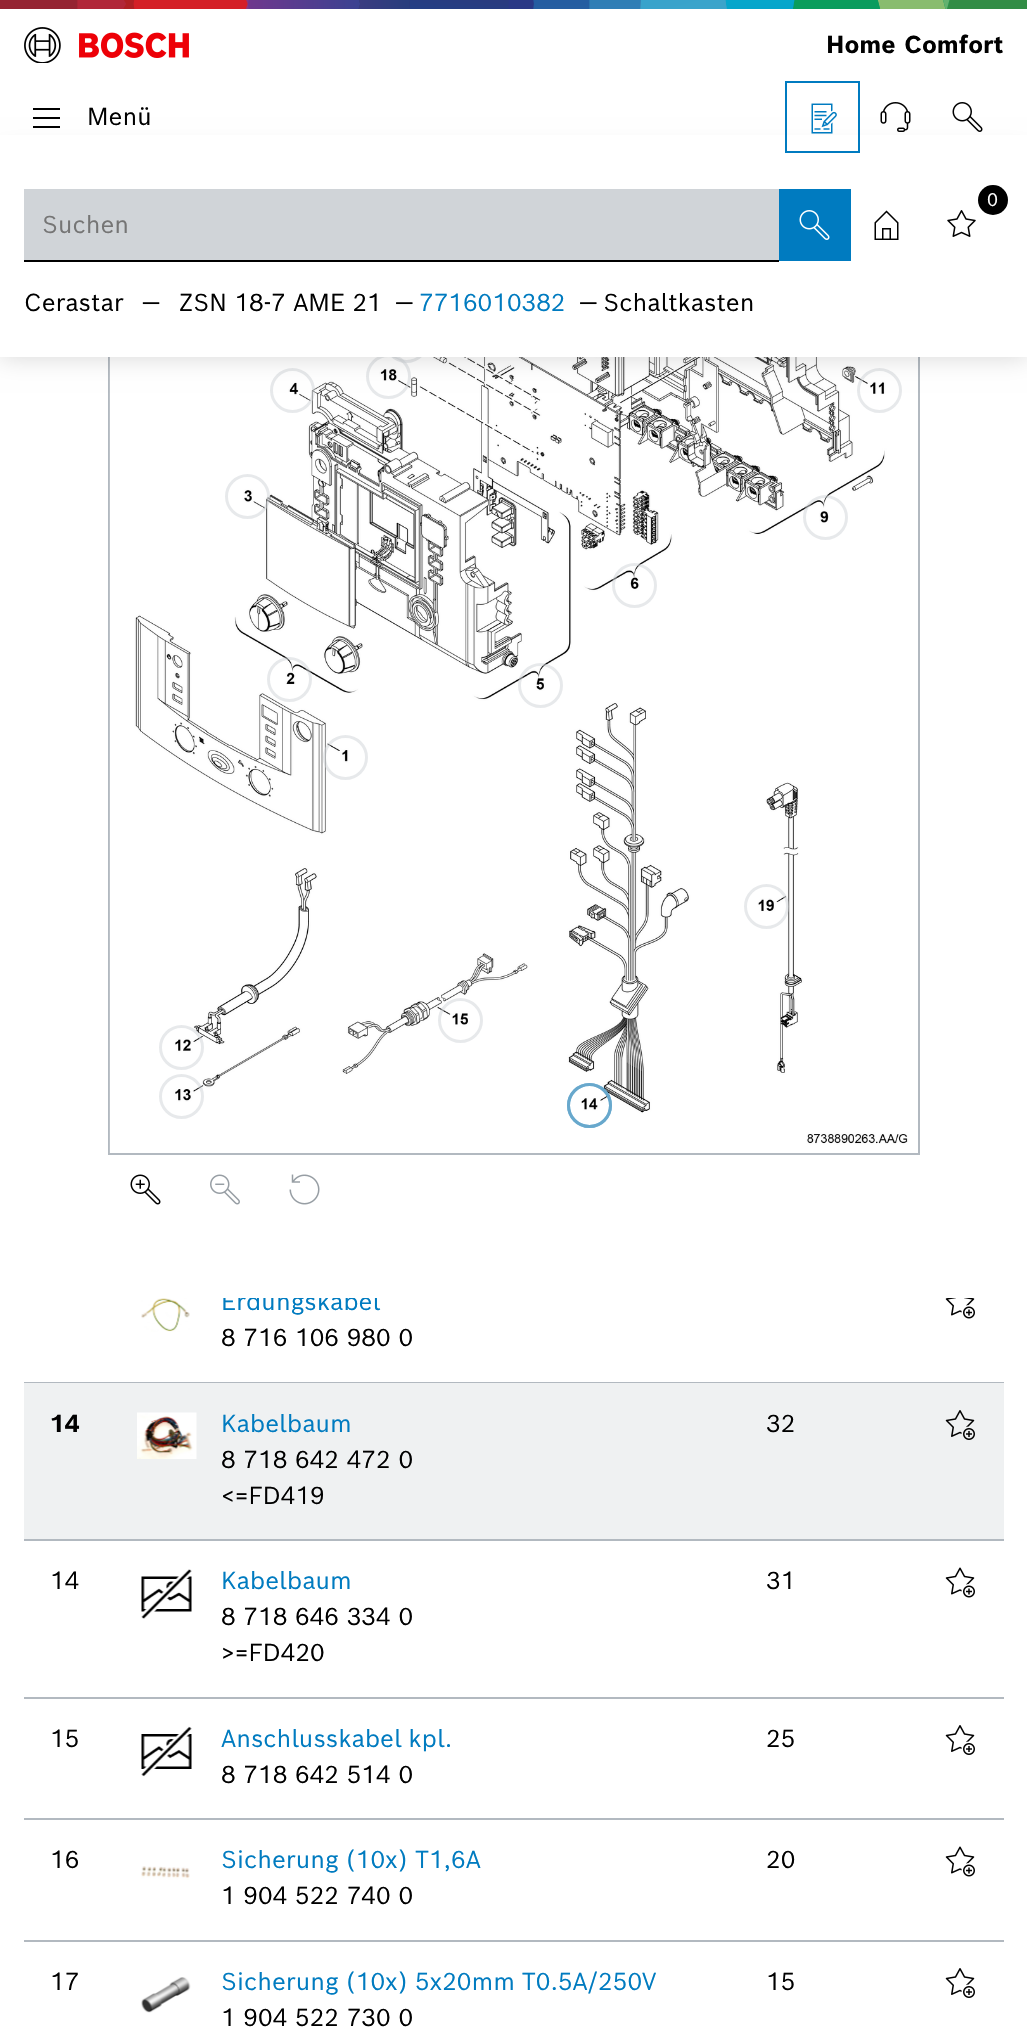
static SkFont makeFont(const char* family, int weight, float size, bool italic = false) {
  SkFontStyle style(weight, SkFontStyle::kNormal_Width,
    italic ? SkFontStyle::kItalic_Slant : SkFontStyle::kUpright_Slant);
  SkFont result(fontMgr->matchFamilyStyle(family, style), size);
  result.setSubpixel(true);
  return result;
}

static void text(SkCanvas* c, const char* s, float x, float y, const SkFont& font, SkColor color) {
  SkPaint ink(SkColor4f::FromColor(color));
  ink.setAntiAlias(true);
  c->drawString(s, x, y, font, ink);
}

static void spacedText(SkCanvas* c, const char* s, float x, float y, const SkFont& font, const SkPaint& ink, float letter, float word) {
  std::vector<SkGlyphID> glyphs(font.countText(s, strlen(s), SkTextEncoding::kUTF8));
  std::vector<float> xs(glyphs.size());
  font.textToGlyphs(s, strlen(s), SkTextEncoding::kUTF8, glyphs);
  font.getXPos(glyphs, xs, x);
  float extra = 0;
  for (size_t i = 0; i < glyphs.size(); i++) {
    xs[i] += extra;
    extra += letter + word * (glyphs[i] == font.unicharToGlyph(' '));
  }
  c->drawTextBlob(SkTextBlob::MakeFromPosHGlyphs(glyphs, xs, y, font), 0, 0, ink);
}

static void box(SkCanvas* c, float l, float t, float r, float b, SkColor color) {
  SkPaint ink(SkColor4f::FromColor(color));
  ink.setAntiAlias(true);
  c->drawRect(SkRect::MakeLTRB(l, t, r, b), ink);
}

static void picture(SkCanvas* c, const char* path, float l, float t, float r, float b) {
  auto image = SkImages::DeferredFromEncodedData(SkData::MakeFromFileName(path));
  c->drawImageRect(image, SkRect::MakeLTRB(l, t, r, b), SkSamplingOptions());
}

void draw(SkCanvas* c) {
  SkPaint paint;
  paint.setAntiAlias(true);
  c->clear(0xffffffff);
  picture(c, "img_01.png", 0, 0, 1027, 9);
  picture(c, "img_02.png", 24, 27, 189, 63);
  SkFont face1 = makeFont("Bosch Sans", 700, 24);
  paint.setColor(0xff000000);
  spacedText(c, "Home Comfort", 826, 53, face1, paint, 0, 1);
  paint.setStyle(SkPaint::kStroke_Style);
  paint.setStrokeWidth(2);
  paint.setColor(0xffb2b9c0);
  c->drawRect(SkRect::MakeLTRB(109, 180, 919, 1154), paint);
  picture(c, "img_09.png", 109, 357, 918, 1153);
  paint.setStrokeWidth(3);
  paint.setColor(0x80d0d4d8);
  c->drawCircle(388.5f, 376.5f, 21, paint);
  c->drawCircle(406.5f, 340.5f, 21, paint);
  c->drawCircle(292.5f, 390.5f, 21, paint);
  c->drawCircle(879.5f, 390.5f, 21, paint);
  paint.setStyle(SkPaint::kFill_Style);
  paint.setColor(0x29000000);
  paint.setMaskFilter(SkMaskFilter::MakeBlur(kNormal_SkBlurStyle, 12));
  c->drawRect(SkRect::MakeLTRB(0, 153, 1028, 357), paint);
  paint.setMaskFilter(nullptr);
  box(c, 0, 135, 1027, 357, 0xffffffff);
  paint.setStyle(SkPaint::kStroke_Style);
  paint.setStrokeWidth(2);
  paint.setColor(0xff007bc0);
  c->drawRect(SkRect::MakeLTRB(786, 82, 859, 152), paint);
  picture(c, "img_03.png", 811, 103, 837, 134);
  picture(c, "img_04.png", 880, 102, 911, 132);
  picture(c, "img_05.png", 952, 102, 983, 132);
  box(c, 33, 108, 60, 110, 0xff000000);
  box(c, 33, 117, 60, 119, 0xff000000);
  box(c, 33, 126, 60, 128, 0xff000000);
  SkFont face2 = makeFont("Bosch Sans", 400, 24);
  text(c, "Menü", 87, 125, face2, 0xff000000);
  paint.setStyle(SkPaint::kFill_Style);
  paint.setColor(0xff000000);
  c->drawCircle(993, 200, 15, paint);
  SkFont face3 = makeFont("Bosch Sans", 400, 18);
  text(c, "0", 987, 206, face3, 0xffffffff);
  picture(c, "img_06.png", 947, 210, 976, 237);
  picture(c, "img_07.png", 874, 210, 899, 240);
  box(c, 24, 189, 779, 260, 0xffd0d4d8);
  box(c, 24, 260, 779, 262, 0xff000000);
  text(c, "Suchen", 42, 233, face2, 0xff757575);
  box(c, 779, 189, 851, 261, 0xff007bc0);
  picture(c, "img_08.png", 799, 210, 830, 240);
  spacedText(c, "Cerastar  —  ZSN 18-7 AME 21", 24, 311, face2, paint, 0, -0.25f);
  text(c, "—", 397, 311, face2, 0xff000000);
  text(c, "7716010382", 419, 311, face2, 0xff007bc0);
  text(c, "— Schaltkasten", 581, 311, face2, 0xff000000);
  paint.setStyle(SkPaint::kStroke_Style);
  paint.setStrokeWidth(3);
  paint.setColor(0x80d0d4d8);
  c->drawCircle(247.5f, 496.5f, 21, paint);
  c->drawCircle(825.5f, 517.5f, 21, paint);
  c->drawCircle(634.5f, 585.5f, 21, paint);
  c->drawCircle(289.5f, 679.5f, 21, paint);
  c->drawCircle(540.5f, 685.5f, 21, paint);
  c->drawCircle(345.5f, 757.5f, 21, paint);
  c->drawCircle(766.5f, 906.5f, 21, paint);
  c->drawCircle(460.5f, 1020.5f, 21, paint);
  c->drawCircle(181.5f, 1047.5f, 21, paint);
  c->drawCircle(181.5f, 1096.5f, 21, paint);
  paint.setColor(0xff007bc0);
  c->drawCircle(589.5f, 1105.5f, 21, paint);
  paint.setColor(0x80d0d4d8);
  c->drawCircle(589.5f, 1105.5f, 21, paint);
  picture(c, "img_10.png", 130, 1174, 161, 1205);
  picture(c, "img_11.png", 210, 1174, 240, 1205);
  picture(c, "img_12.png", 289, 1174, 320, 1205);
  box(c, 24, 1382, 1004, 1383, 0xffb2b9c0);
  picture(c, "img_13.png", 141, 1298, 190, 1332);
  c->save();
  c->clipRect(SkRect::MakeLTRB(24, 1298, 1004, 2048));
  text(c, "Erdungskabel", 221, 1310, face2, 0xff007bc0);
  c->restore();
  text(c, "8 716 106 980 0", 221, 1346, face2, 0xff000000);
  picture(c, "img_14.png", 945, 1298, 975, 1319);
  box(c, 24, 1383, 1004, 1539, 0xffeff1f2);
  box(c, 24, 1539, 1004, 1541, 0xffb2b9c0);
  text(c, "14", 50, 1432, face1, 0xff000000);
  picture(c, "img_15.png", 137, 1412, 197, 1459);
  text(c, "Kabelbaum", 221, 1432, face2, 0xff007bc0);
  text(c, "8 718 642 472 0", 221, 1468, face2, 0xff000000);
  text(c, "<=FD419", 221, 1504, face2, 0xff000000);
  text(c, "32", 766, 1432, face2, 0xff000000);
  picture(c, "img_16.png", 945, 1410, 975, 1440);
  box(c, 24, 1697, 1004, 1699, 0xffb2b9c0);
  text(c, "14", 50, 1589, face2, 0xff000000);
  picture(c, "img_17.png", 141, 1569, 192, 1619);
  text(c, "Kabelbaum", 221, 1589, face2, 0xff007bc0);
  text(c, "8 718 646 334 0", 221, 1625, face2, 0xff000000);
  text(c, ">=FD420", 221, 1661, face2, 0xff000000);
  text(c, "31", 766, 1589, face2, 0xff000000);
  picture(c, "img_18.png", 945, 1567, 975, 1598);
  box(c, 24, 1818, 1004, 1820, 0xffb2b9c0);
  text(c, "15", 50, 1747, face2, 0xff000000);
  picture(c, "img_19.png", 141, 1726, 192, 1777);
  paint.setStyle(SkPaint::kFill_Style);
  paint.setColor(0xff007bc0);
  spacedText(c, "Anschlusskabel kpl.", 221, 1747, face2, paint, 0, -1);
  text(c, "8 718 642 514 0", 221, 1783, face2, 0xff000000);
  text(c, "25", 766, 1747, face2, 0xff000000);
  picture(c, "img_20.png", 945, 1725, 975, 1755);
  box(c, 24, 1940, 1004, 1942, 0xffb2b9c0);
  text(c, "16", 50, 1868, face2, 0xff000000);
  picture(c, "img_21.png", 141, 1866, 190, 1880);
  spacedText(c, "Sicherung (10x) T1,6A", 221, 1868, face2, paint, 0, -1);
  text(c, "1 904 522 740 0", 221, 1904, face2, 0xff000000);
  text(c, "20", 766, 1868, face2, 0xff000000);
  picture(c, "img_18.png", 945, 1846, 975, 1877);
  text(c, "17", 50, 1990, face2, 0xff000000);
  picture(c, "img_22.png", 141, 1977, 191, 2013);
  spacedText(c, "Sicherung (10x) 5x20mm T0.5A/250V", 221, 1990, face2, paint, 0, -1);
  text(c, "1 904 522 730 0", 221, 2026, face2, 0xff000000);
  text(c, "15", 766, 1990, face2, 0xff000000);
  picture(c, "img_20.png", 945, 1968, 975, 1998);
}
